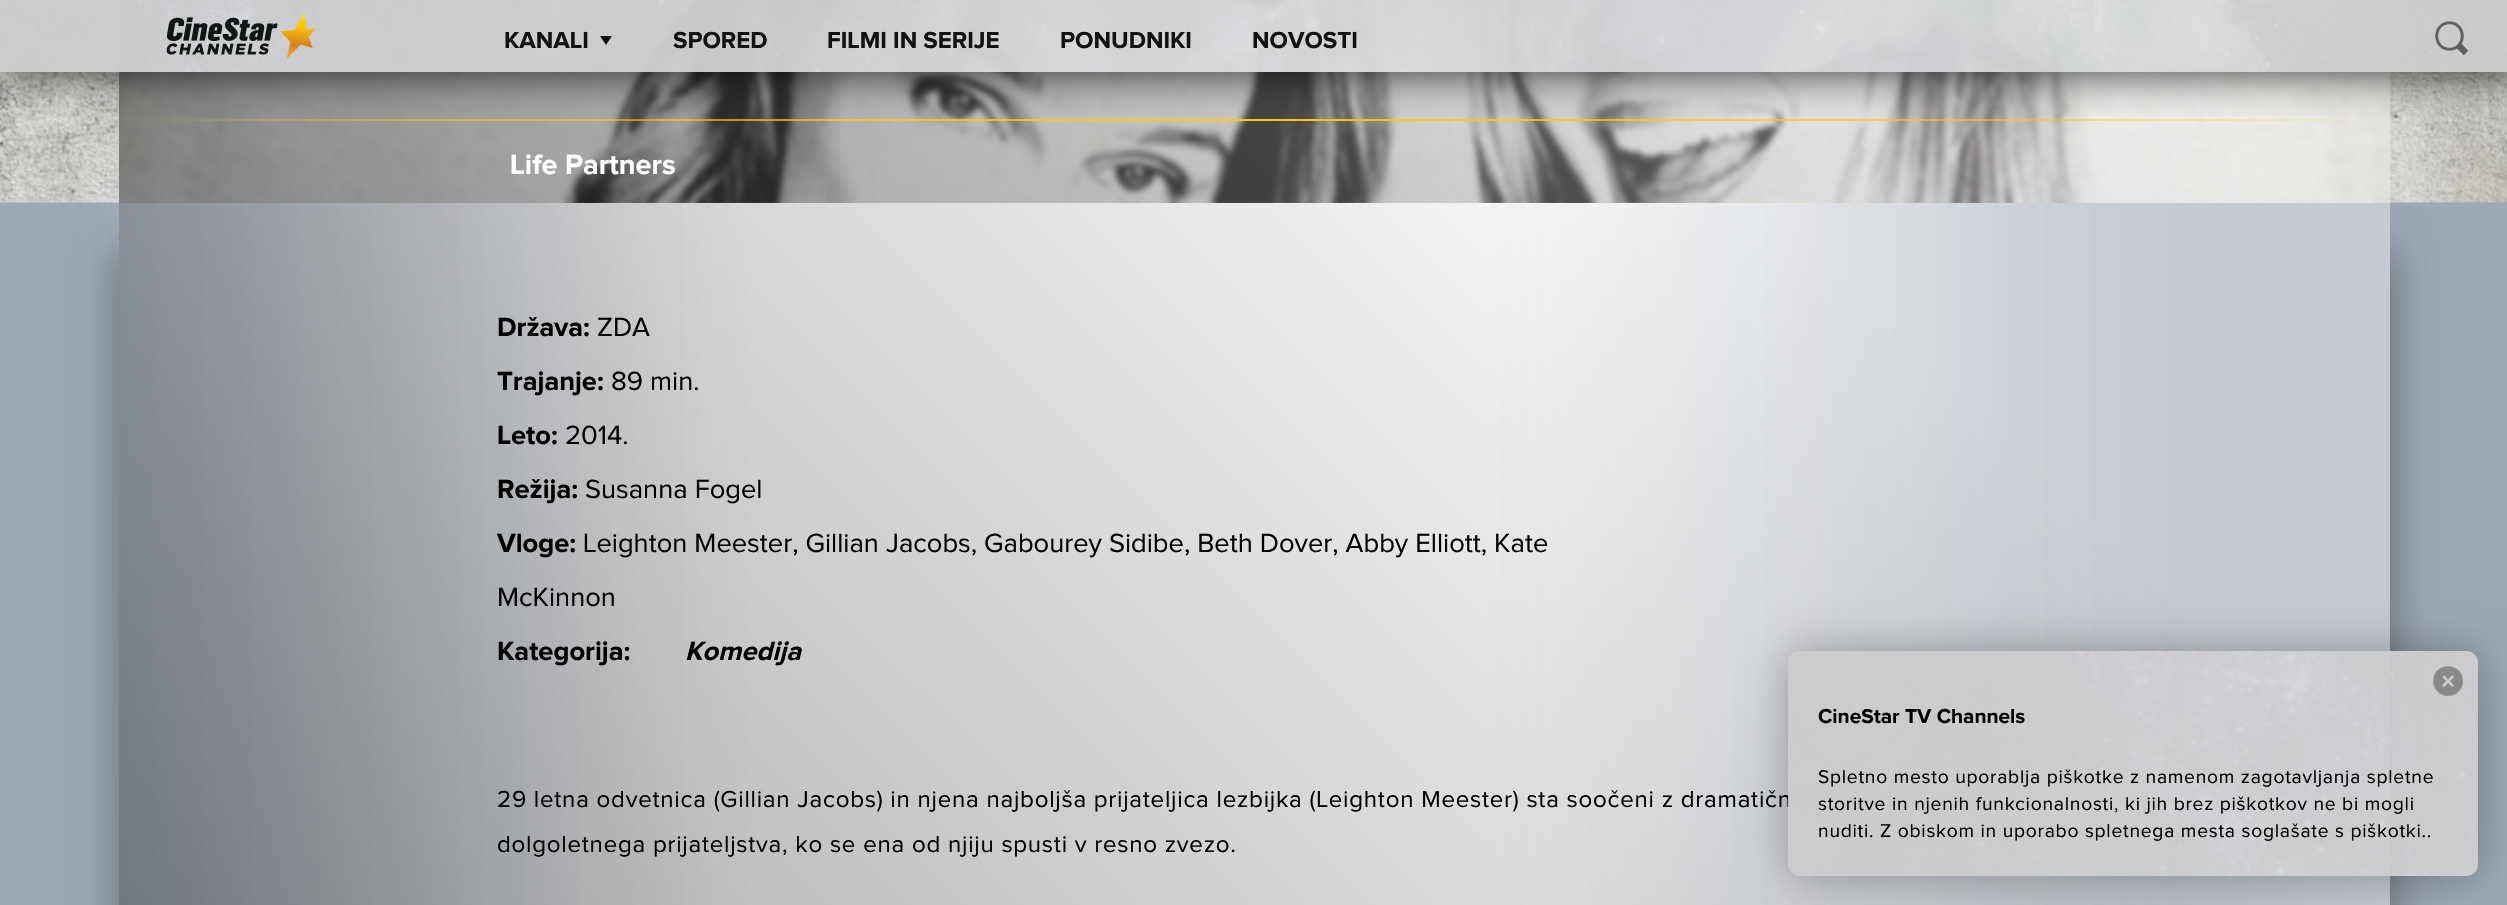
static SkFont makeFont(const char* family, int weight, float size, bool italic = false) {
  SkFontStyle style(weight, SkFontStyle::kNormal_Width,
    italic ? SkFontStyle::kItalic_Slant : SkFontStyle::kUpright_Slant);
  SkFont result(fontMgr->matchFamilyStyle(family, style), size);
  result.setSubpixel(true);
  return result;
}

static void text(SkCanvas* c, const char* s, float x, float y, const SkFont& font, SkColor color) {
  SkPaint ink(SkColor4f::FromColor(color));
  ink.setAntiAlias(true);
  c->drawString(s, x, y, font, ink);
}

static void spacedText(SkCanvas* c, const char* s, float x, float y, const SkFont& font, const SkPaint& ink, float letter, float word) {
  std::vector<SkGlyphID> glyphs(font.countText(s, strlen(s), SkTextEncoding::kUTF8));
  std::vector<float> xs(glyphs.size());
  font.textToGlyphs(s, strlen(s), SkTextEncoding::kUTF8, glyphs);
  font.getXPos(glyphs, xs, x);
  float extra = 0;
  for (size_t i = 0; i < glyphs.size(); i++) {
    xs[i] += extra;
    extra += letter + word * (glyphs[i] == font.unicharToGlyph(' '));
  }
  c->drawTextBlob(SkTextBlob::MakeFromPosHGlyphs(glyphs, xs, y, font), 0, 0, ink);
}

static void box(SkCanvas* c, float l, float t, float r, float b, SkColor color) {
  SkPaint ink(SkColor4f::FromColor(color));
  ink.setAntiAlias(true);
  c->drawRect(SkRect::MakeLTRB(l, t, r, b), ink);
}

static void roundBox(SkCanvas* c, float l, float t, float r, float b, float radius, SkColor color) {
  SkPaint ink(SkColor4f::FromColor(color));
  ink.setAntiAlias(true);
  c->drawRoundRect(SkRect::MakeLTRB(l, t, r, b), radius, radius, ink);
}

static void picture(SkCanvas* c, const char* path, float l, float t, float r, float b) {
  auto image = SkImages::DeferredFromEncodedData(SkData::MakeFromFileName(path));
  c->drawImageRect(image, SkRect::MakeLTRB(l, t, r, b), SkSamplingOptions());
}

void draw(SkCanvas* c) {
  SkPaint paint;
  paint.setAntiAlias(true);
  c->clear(0xffffffff);
  picture(c, "img_01.png", 0, 202, 2507, 905);
  c->save();
  c->clipPath(SkPathBuilder(SkPathFillType::kEvenOdd).moveTo(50, 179).lineTo(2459, 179).lineTo(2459, 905).lineTo(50, 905).close().moveTo(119, 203).lineTo(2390, 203).lineTo(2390, 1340).cubicTo(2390, 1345, 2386, 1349, 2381, 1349).lineTo(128, 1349).cubicTo(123, 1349, 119, 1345, 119, 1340).close().detach(), true);
  paint.setColor(0x66000000);
  paint.setMaskFilter(SkMaskFilter::MakeBlur(kNormal_SkBlurStyle, 22.5f));
  c->drawRoundRect(SkRect::MakeLTRB(119, 248, 2390, 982), 9, 9, paint);
  paint.setMaskFilter(nullptr);
  c->restore();
  picture(c, "img_05.png", 0, 0, 2507, 203);
  picture(c, "img_06.png", 118, 0, 2390, 203);
  picture(c, "img_07.png", 118, 197, 2390, 203);
  picture(c, "img_08.png", 566, 200, 2342, 203);
  {
    const SkColor colors[] = {0x66000000, 0x66fffcfc, 0x66fffcfc};
    const float stops[] = {0, 0.82f, 0.84f};
    const SkPoint ends[] = {{590, 674}, {1918, -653}};
    paint.setShader(SkGradientShader::MakeLinear(ends, colors, stops, 3, SkTileMode::kClamp));
    paint.setAlpha(255);
  }
  c->drawRect(SkRect::MakeLTRB(119, 0, 2390, 203), paint);
  {
    const SkColor colors[] = {0x00fdc80d, 0x80fdc80d, 0xfffdc80d, 0x80fdc80d, 0x00fdc80d};
    const float stops[] = {0, 0.15f, 0.5f, 0.85f, 1};
    const SkPoint ends[] = {{119, 119}, {2390, 119}};
    paint.setShader(SkGradientShader::MakeLinear(ends, colors, stops, 5, SkTileMode::kClamp));
    paint.setAlpha(255);
  }
  c->drawRect(SkRect::MakeLTRB(134, 119, 2375, 121), paint);
  c->save();
  c->clipRect(SkRect::MakeLTRB(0, 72, 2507, 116));
  paint.setShader(nullptr);
  paint.setColor(0xcc000000);
  paint.setMaskFilter(SkMaskFilter::MakeBlur(kNormal_SkBlurStyle, 22.5f));
  c->drawRect(SkRect::MakeLTRB(0, 0, 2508, 72), paint);
  paint.setMaskFilter(nullptr);
  c->restore();
  box(c, 0, 0, 2507, 72, 0xf2ffffff);
  picture(c, "img_02.png", 0, 0, 2507, 72);
  picture(c, "img_03.png", 166, 12, 317, 60);
  SkFont face1 = makeFont("Proxima Nova", 700, 22.5f);
  text(c, "KANALI", 504, 48, face1, 0xff111212);
  paint.setColor(0xff111212);
  c->drawPath(SkPathBuilder().moveTo(600, 36).lineTo(612, 36).lineTo(606, 45).close().detach(), paint);
  text(c, "SPORED", 673, 48, face1, 0xff111212);
  text(c, "FILMI IN SERIJE", 827, 48, face1, 0xff111212);
  text(c, "PONUDNIKI", 1060, 48, face1, 0xff111212);
  text(c, "NOVOSTI", 1252, 48, face1, 0xff111212);
  picture(c, "img_04.png", 2435, 21, 2469, 56);
  SkFont face2 = makeFont("Proxima Nova", 700, 27);
  text(c, "Life Partners", 510, 174, face2, 0xffffffff);
  {
    const SkColor colors[] = {0x66000000, 0x66fffcfc, 0x66fffcfc};
    const float stops[] = {0, 0.82f, 0.84f};
    const SkPoint ends[] = {{400, 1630}, {2108, -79}};
    paint.setShader(SkGradientShader::MakeLinear(ends, colors, stops, 3, SkTileMode::kClamp));
    paint.setAlpha(255);
  }
  c->drawRect(SkRect::MakeLTRB(119, 203, 2390, 905), paint);
  SkFont face3 = makeFont("Proxima Nova", 700, 25.5f);
  text(c, "Država:", 497, 336, face3, 0xff000000);
  SkFont face4 = makeFont("Proxima Nova", 400, 25.5f);
  text(c, "ZDA", 597, 336, face4, 0xff000000);
  text(c, "Trajanje:", 497, 390, face3, 0xff000000);
  text(c, "89 min.", 611, 390, face4, 0xff000000);
  text(c, "Leto:", 497, 444, face3, 0xff000000);
  text(c, "2014.", 565, 444, face4, 0xff000000);
  text(c, "Režija:", 497, 498, face3, 0xff000000);
  text(c, "Susanna Fogel", 585, 498, face4, 0xff000000);
  text(c, "Vloge:", 497, 552, face3, 0xff000000);
  text(c, "Leighton Meester, Gillian Jacobs, Gabourey Sidibe, Beth Dover, Abby Elliott, Kate", 583, 552, face4, 0xff000000);
  text(c, "McKinnon", 497, 606, face4, 0xff000000);
  text(c, "Kategorija:", 497, 660, face3, 0xff000000);
  SkFont face5 = makeFont("Proxima Nova", 700, 25.5f, true);
  text(c, "Komedija", 685, 660, face5, 0xff000000);
  SkFont face6 = makeFont("Proxima Nova", 400, 22.5f);
  paint.setShader(nullptr);
  paint.setColor(0xff000000);
  spacedText(c, "29 letna odvetnica (Gillian Jacobs) in njena najboljša prijateljica lezbijka (Leighton Meester) sta soočeni z dramatičn", 497, 807, face6, paint, 0.75f, 0);
  spacedText(c, "dolgoletnega prijateljstva, ko se ena od njiju spusti v resno zvezo.", 497, 852, face6, paint, 0.75f, 0);
  c->save();
  c->clipPath(SkPathBuilder(SkPathFillType::kEvenOdd).moveTo(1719, 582).lineTo(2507, 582).lineTo(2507, 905).lineTo(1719, 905).close().moveTo(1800, 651).lineTo(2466, 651).cubicTo(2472.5f, 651, 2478, 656.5f, 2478, 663).lineTo(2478, 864).cubicTo(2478, 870.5f, 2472.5f, 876, 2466, 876).lineTo(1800, 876).cubicTo(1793.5f, 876, 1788, 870.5f, 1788, 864).lineTo(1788, 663).cubicTo(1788, 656.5f, 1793.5f, 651, 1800, 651).close().detach(), true);
  paint.setColor(0x4d000000);
  paint.setMaskFilter(SkMaskFilter::MakeBlur(kNormal_SkBlurStyle, 22.5f));
  c->drawRoundRect(SkRect::MakeLTRB(1788, 651, 2478, 876), 12, 12, paint);
  paint.setMaskFilter(nullptr);
  c->restore();
  roundBox(c, 1788, 651, 2478, 876, 12, 0xf0ffffff);
  picture(c, "img_09.png", 1788, 651, 2478, 876);
  picture(c, "img_10.png", 2433, 666, 2463, 696);
  SkFont face7 = makeFont("Proxima Nova", 700, 19.5f);
  text(c, "CineStar TV Channels", 1818, 723, face7, 0xff000000);
  SkFont face8 = makeFont("Proxima Nova", 400, 18);
  paint.setColor(0xff000000);
  spacedText(c, "Spletno mesto uporablja piškotke z namenom zagotavljanja spletne", 1818, 783, face8, paint, 0.75f, 0);
  spacedText(c, "storitve in njenih funkcionalnosti, ki jih brez piškotkov ne bi mogli", 1818, 810, face8, paint, 0.75f, 0);
  spacedText(c, "nuditi. Z obiskom in uporabo spletnega mesta soglašate s piškotki..", 1818, 837, face8, paint, 0.75f, 0);
}
